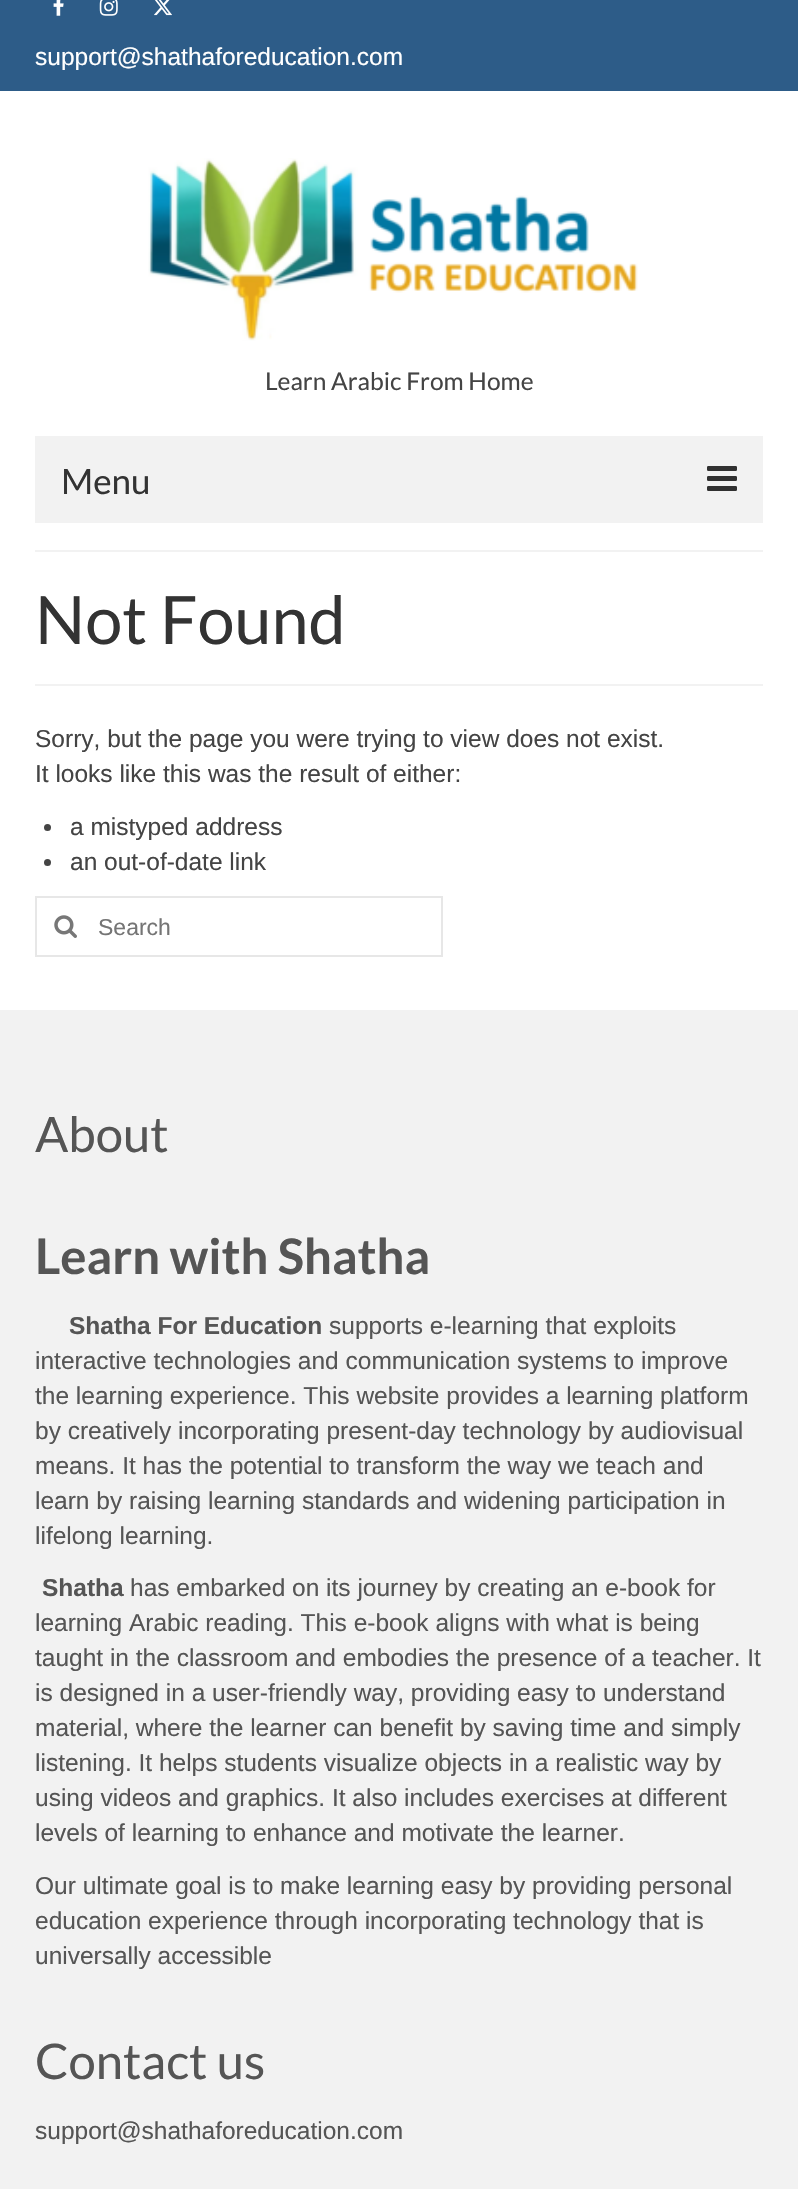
static SkFont makeFont(const char* family, int weight, float size, bool italic = false) {
  SkFontStyle style(weight, SkFontStyle::kNormal_Width,
    italic ? SkFontStyle::kItalic_Slant : SkFontStyle::kUpright_Slant);
  SkFont result(fontMgr->matchFamilyStyle(family, style), size);
  result.setSubpixel(true);
  return result;
}

static void text(SkCanvas* c, const char* s, float x, float y, const SkFont& font, SkColor color) {
  SkPaint ink(SkColor4f::FromColor(color));
  ink.setAntiAlias(true);
  c->drawString(s, x, y, font, ink);
}

static void box(SkCanvas* c, float l, float t, float r, float b, SkColor color) {
  SkPaint ink(SkColor4f::FromColor(color));
  ink.setAntiAlias(true);
  c->drawRect(SkRect::MakeLTRB(l, t, r, b), ink);
}

static void picture(SkCanvas* c, const char* path, float l, float t, float r, float b) {
  auto image = SkImages::DeferredFromEncodedData(SkData::MakeFromFileName(path));
  c->drawImageRect(image, SkRect::MakeLTRB(l, t, r, b), SkSamplingOptions());
}

void draw(SkCanvas* c) {
  SkPaint paint;
  paint.setAntiAlias(true);
  c->clear(0xffffffff);
  box(c, 0, 0, 798, 91, 0xff2d5c88);
  picture(c, "img_01.png", 53, 0, 64, 16);
  picture(c, "img_02.png", 99, 0, 118, 16);
  picture(c, "img_03.png", 154, 0, 172, 16);
  SkFont face1 = makeFont("Liberation Sans", 400, 24.5f);
  text(c, "support@shathaforeducation.com", 35, 65, face1, 0xffffffff);
  picture(c, "img_04.png", 148, 158, 638, 341);
  SkFont face2 = makeFont("Lato", 400, 24.5f);
  text(c, "Learn Arabic From Home", 265, 390, face2, 0xff444444);
  box(c, 35, 436, 763, 523, 0xfff2f2f2);
  SkFont face3 = makeFont("Lato", 400, 35);
  text(c, "Menu", 61, 494, face3, 0xff333333);
  picture(c, "img_05.png", 707, 466, 737, 491);
  box(c, 35, 550, 763, 552, 0xfff2f2f2);
  box(c, 35, 684, 763, 686, 0xfff2f2f2);
  SkFont face4 = makeFont("Lato", 400, 66.5f);
  text(c, "Not Found", 35, 644, face4, 0xff333333);
  text(c, "Sorry, but the page you were trying to view does not exist.", 35, 747, face1, 0xff444444);
  text(c, "It looks like this was the result of either:", 35, 782, face1, 0xff444444);
  paint.setColor(0xff444444);
  c->drawCircle(47.5f, 827.5f, 3.5f, paint);
  text(c, "a mistyped address", 70, 835, face1, 0xff444444);
  c->drawCircle(47.5f, 862.5f, 3.5f, paint);
  text(c, "an out-of-date link", 70, 870, face1, 0xff444444);
  paint.setStyle(SkPaint::kStroke_Style);
  paint.setStrokeWidth(2);
  paint.setColor(0xffe7e7e7);
  c->drawRect(SkRect::MakeLTRB(36, 897, 442, 956), paint);
  picture(c, "img_06.png", 54, 915, 77, 938);
  SkFont face5 = makeFont("Liberation Sans", 400, 23);
  text(c, "Search", 98, 935, face5, 0xff757575);
  box(c, 0, 1010, 798, 2189, 0xfff2f2f2);
  SkFont face6 = makeFont("Lato", 400, 49);
  text(c, "About", 35, 1152, face6, 0xff555555);
  SkFont face7 = makeFont("Lato", 700, 49);
  text(c, "Learn with Shatha", 35, 1274, face7, 0xff555555);
  SkFont face8 = makeFont("Liberation Sans", 700, 24.5f);
  text(c, "Shatha For Education", 69, 1334, face8, 0xff555555);
  text(c, "supports e-learning that exploits", 329, 1334, face1, 0xff555555);
  text(c, "interactive technologies and communication systems to improve", 35, 1369, face1, 0xff555555);
  text(c, "the learning experience. This website provides a learning platform", 35, 1404, face1, 0xff555555);
  text(c, "by creatively incorporating present-day technology by audiovisual", 35, 1439, face1, 0xff555555);
  text(c, "means. It has the potential to transform the way we teach and", 35, 1474, face1, 0xff555555);
  text(c, "learn by raising learning standards and widening participation in", 35, 1509, face1, 0xff555555);
  text(c, "lifelong learning.", 35, 1544, face1, 0xff555555);
  text(c, "Shatha", 42, 1596, face8, 0xff555555);
  text(c, "has embarked on its journey by creating an e-book for", 130, 1596, face1, 0xff555555);
  text(c, "learning Arabic reading. This e-book aligns with what is being", 35, 1631, face1, 0xff555555);
  text(c, "taught in the classroom and embodies the presence of a teacher. It", 35, 1666, face1, 0xff555555);
  text(c, "is designed in a user-friendly way, providing easy to understand", 35, 1701, face1, 0xff555555);
  text(c, "material, where the learner can benefit by saving time and simply", 35, 1736, face1, 0xff555555);
  text(c, "listening. It helps students visualize objects in a realistic way by", 35, 1771, face1, 0xff555555);
  text(c, "using videos and graphics. It also includes exercises at different", 35, 1806, face1, 0xff555555);
  text(c, "levels of learning to enhance and motivate the learner.", 35, 1841, face1, 0xff555555);
  text(c, "Our ultimate goal is to make learning easy by providing personal", 35, 1894, face1, 0xff555555);
  text(c, "education experience through incorporating technology that is", 35, 1929, face1, 0xff555555);
  text(c, "universally accessible", 35, 1964, face1, 0xff555555);
  text(c, "Contact us", 35, 2079, face6, 0xff555555);
  text(c, "support@shathaforeducation.com", 35, 2139, face1, 0xff555555);
}
